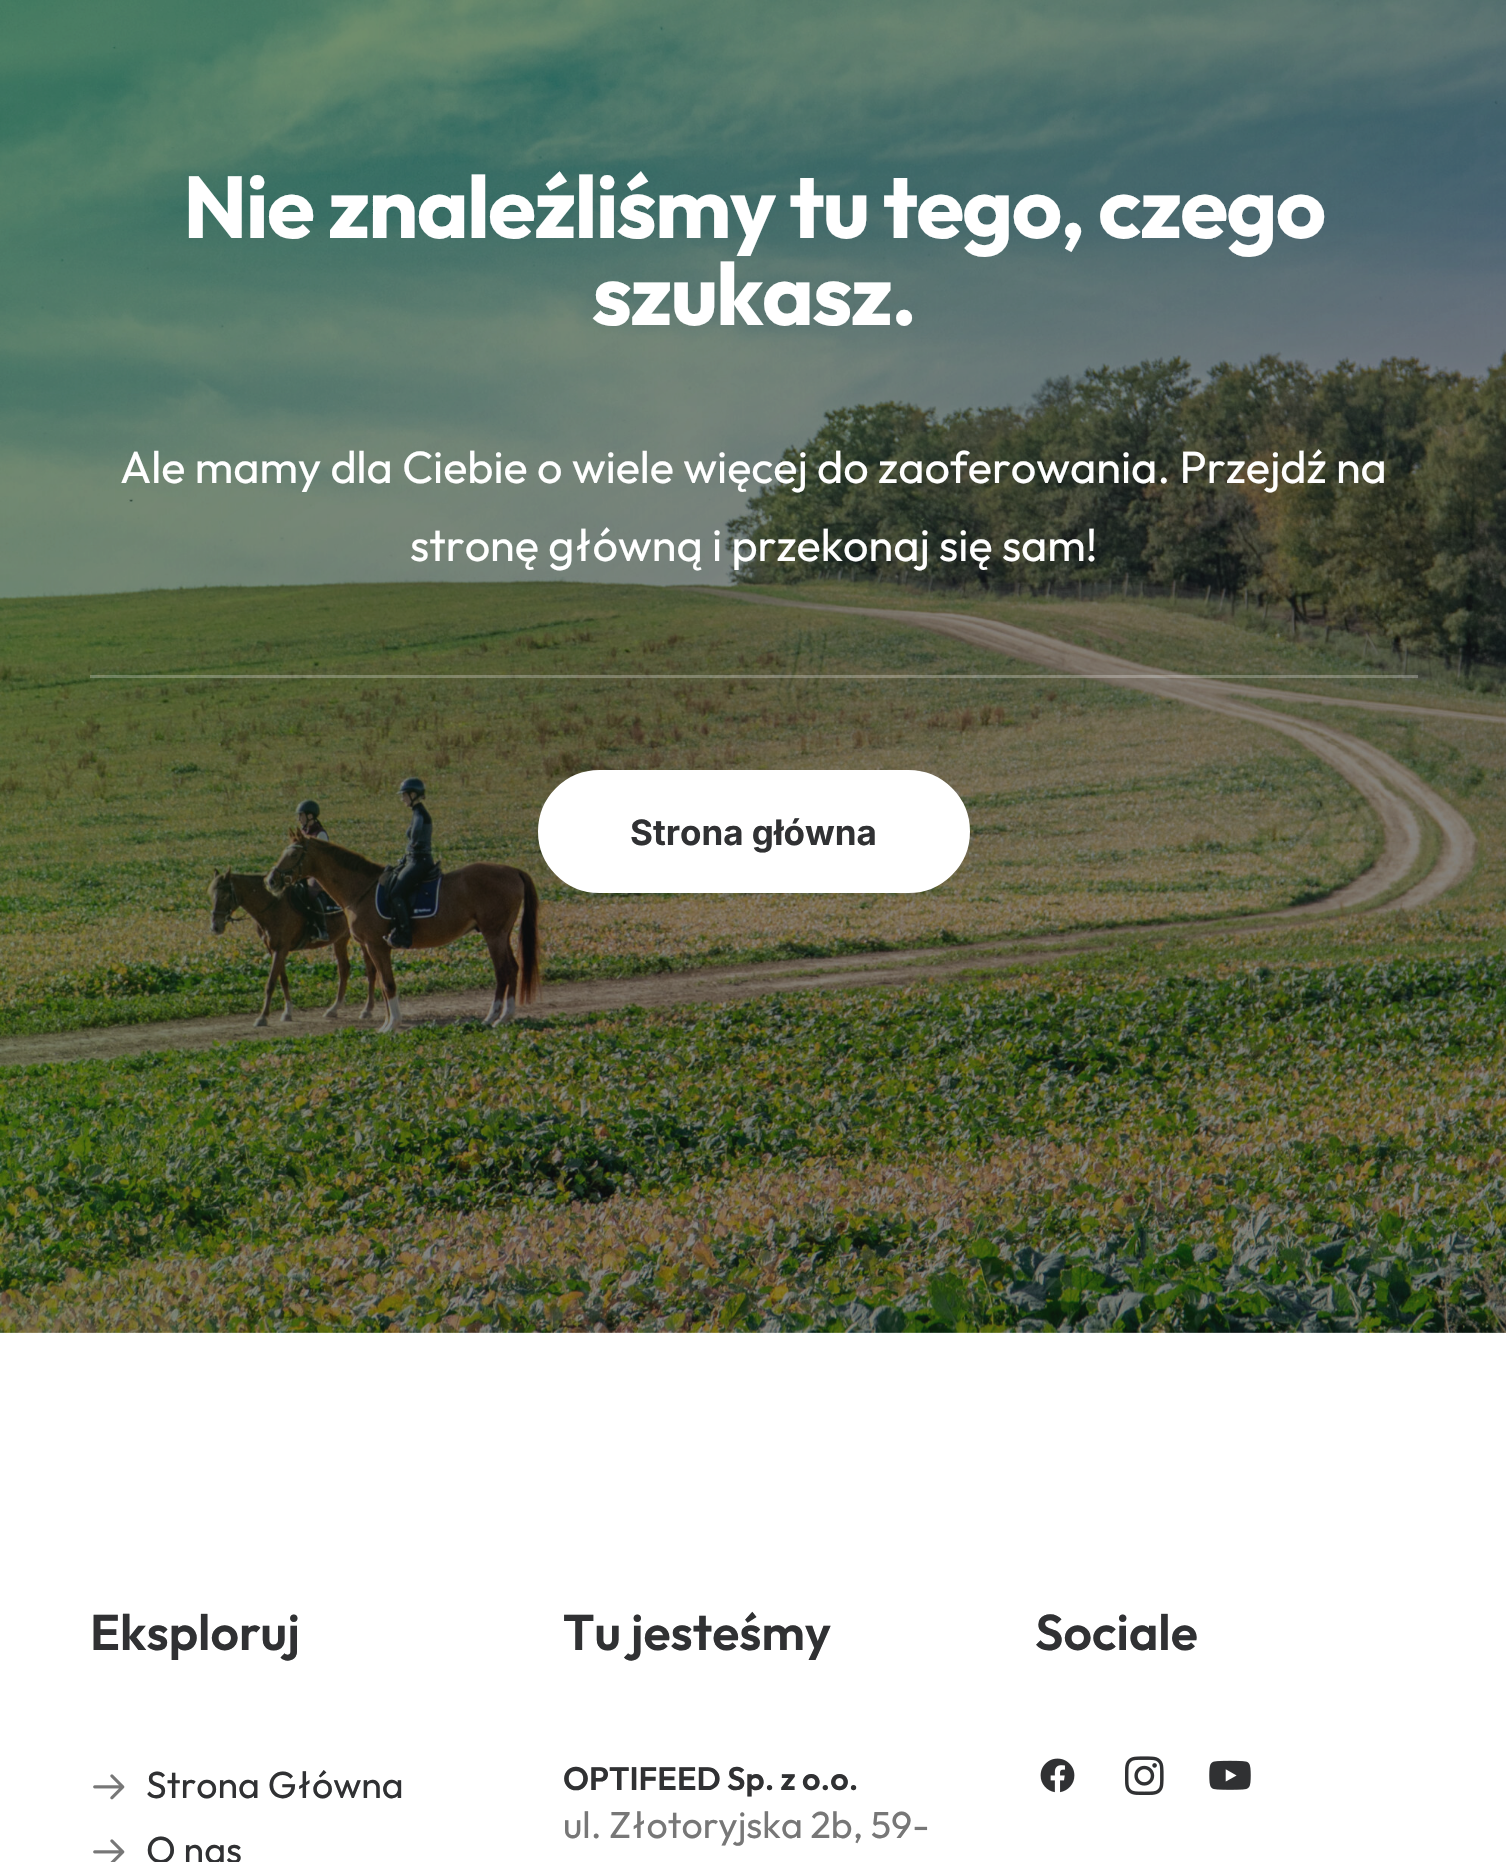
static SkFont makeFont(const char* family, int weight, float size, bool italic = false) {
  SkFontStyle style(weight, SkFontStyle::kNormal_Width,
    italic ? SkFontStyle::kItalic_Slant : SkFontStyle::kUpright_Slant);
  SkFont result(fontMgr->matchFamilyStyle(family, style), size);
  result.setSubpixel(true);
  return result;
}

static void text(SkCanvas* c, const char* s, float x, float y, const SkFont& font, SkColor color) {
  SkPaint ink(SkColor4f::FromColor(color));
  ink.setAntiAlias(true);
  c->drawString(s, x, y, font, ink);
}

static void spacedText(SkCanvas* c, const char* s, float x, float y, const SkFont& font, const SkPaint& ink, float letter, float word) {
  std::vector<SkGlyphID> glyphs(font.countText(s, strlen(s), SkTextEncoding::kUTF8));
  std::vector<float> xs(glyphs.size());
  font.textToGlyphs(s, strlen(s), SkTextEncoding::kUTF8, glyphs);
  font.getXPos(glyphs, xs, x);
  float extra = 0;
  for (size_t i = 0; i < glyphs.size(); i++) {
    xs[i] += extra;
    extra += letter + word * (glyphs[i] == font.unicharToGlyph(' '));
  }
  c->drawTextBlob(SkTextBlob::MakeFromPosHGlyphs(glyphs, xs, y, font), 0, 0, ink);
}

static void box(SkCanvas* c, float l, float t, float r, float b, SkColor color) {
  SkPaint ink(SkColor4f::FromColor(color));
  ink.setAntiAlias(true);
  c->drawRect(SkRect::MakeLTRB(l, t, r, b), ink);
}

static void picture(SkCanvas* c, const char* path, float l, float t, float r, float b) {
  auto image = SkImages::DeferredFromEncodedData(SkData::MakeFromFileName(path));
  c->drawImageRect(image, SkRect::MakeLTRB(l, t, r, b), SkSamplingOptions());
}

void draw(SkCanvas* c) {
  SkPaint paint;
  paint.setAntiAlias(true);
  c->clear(0xffffffff);
  picture(c, "img_01.png", 0, 0, 1506, 1333);
  picture(c, "img_02.png", 0, 0, 1506, 1333);
  SkFont face1 = makeFont("Outfit", 700, 87.5f);
  paint.setColor(0xffffffff);
  spacedText(c, "Nie znaleźliśmy tu tego, czego", 183, 238, face1, paint, -1.75f, 0);
  spacedText(c, "szukasz.", 592, 325, face1, paint, -1.75f, 0);
  SkFont face2 = makeFont("Outfit", 400, 45);
  text(c, "Ale mamy dla Ciebie o wiele więcej do zaoferowania. Przejdź na", 120, 483, face2, 0xffffffff);
  text(c, "stronę główną i przekonaj się sam!", 410, 561, face2, 0xffffffff);
  box(c, 90, 675, 1418, 678, 0x40ffffff);
  c->drawRoundRect(SkRect::MakeLTRB(539.5f, 771.5f, 968.5f, 891.5f), 60, 60, paint);
  paint.setStyle(SkPaint::kStroke_Style);
  paint.setStrokeWidth(3);
  c->drawRoundRect(SkRect::MakeLTRB(539.5f, 771.5f, 968.5f, 891.5f), 60, 60, paint);
  SkFont face3 = makeFont("Inter", 700, 35);
  text(c, "Strona główna", 630, 845, face3, 0xff303133);
  SkFont face4 = makeFont("Outfit", 600, 50);
  text(c, "Eksploruj", 90, 1650, face4, 0xff303133);
  picture(c, "img_03.png", 93, 1774, 125, 1800);
  SkFont face5 = makeFont("Outfit", 400, 37.5f);
  text(c, "Strona Główna", 146, 1798, face5, 0xff303133);
  picture(c, "img_04.png", 93, 1839, 125, 1862);
  text(c, "O nas", 146, 1863, face5, 0xff303133);
  text(c, "Tu jesteśmy", 563, 1650, face4, 0xff303133);
  SkFont face6 = makeFont("Outfit", 600, 32.5f);
  text(c, "OPTIFEED Sp. z o.o.", 563, 1790, face6, 0xff303133);
  text(c, "ul. Złotoryjska 2b, 59-", 563, 1838, face5, 0xff777777);
  text(c, "Sociale", 1035, 1650, face4, 0xff303133);
  picture(c, "img_05.png", 1040, 1758, 1075, 1793);
  picture(c, "img_06.png", 1125, 1756, 1164, 1795);
  picture(c, "img_07.png", 1209, 1760, 1251, 1790);
}
